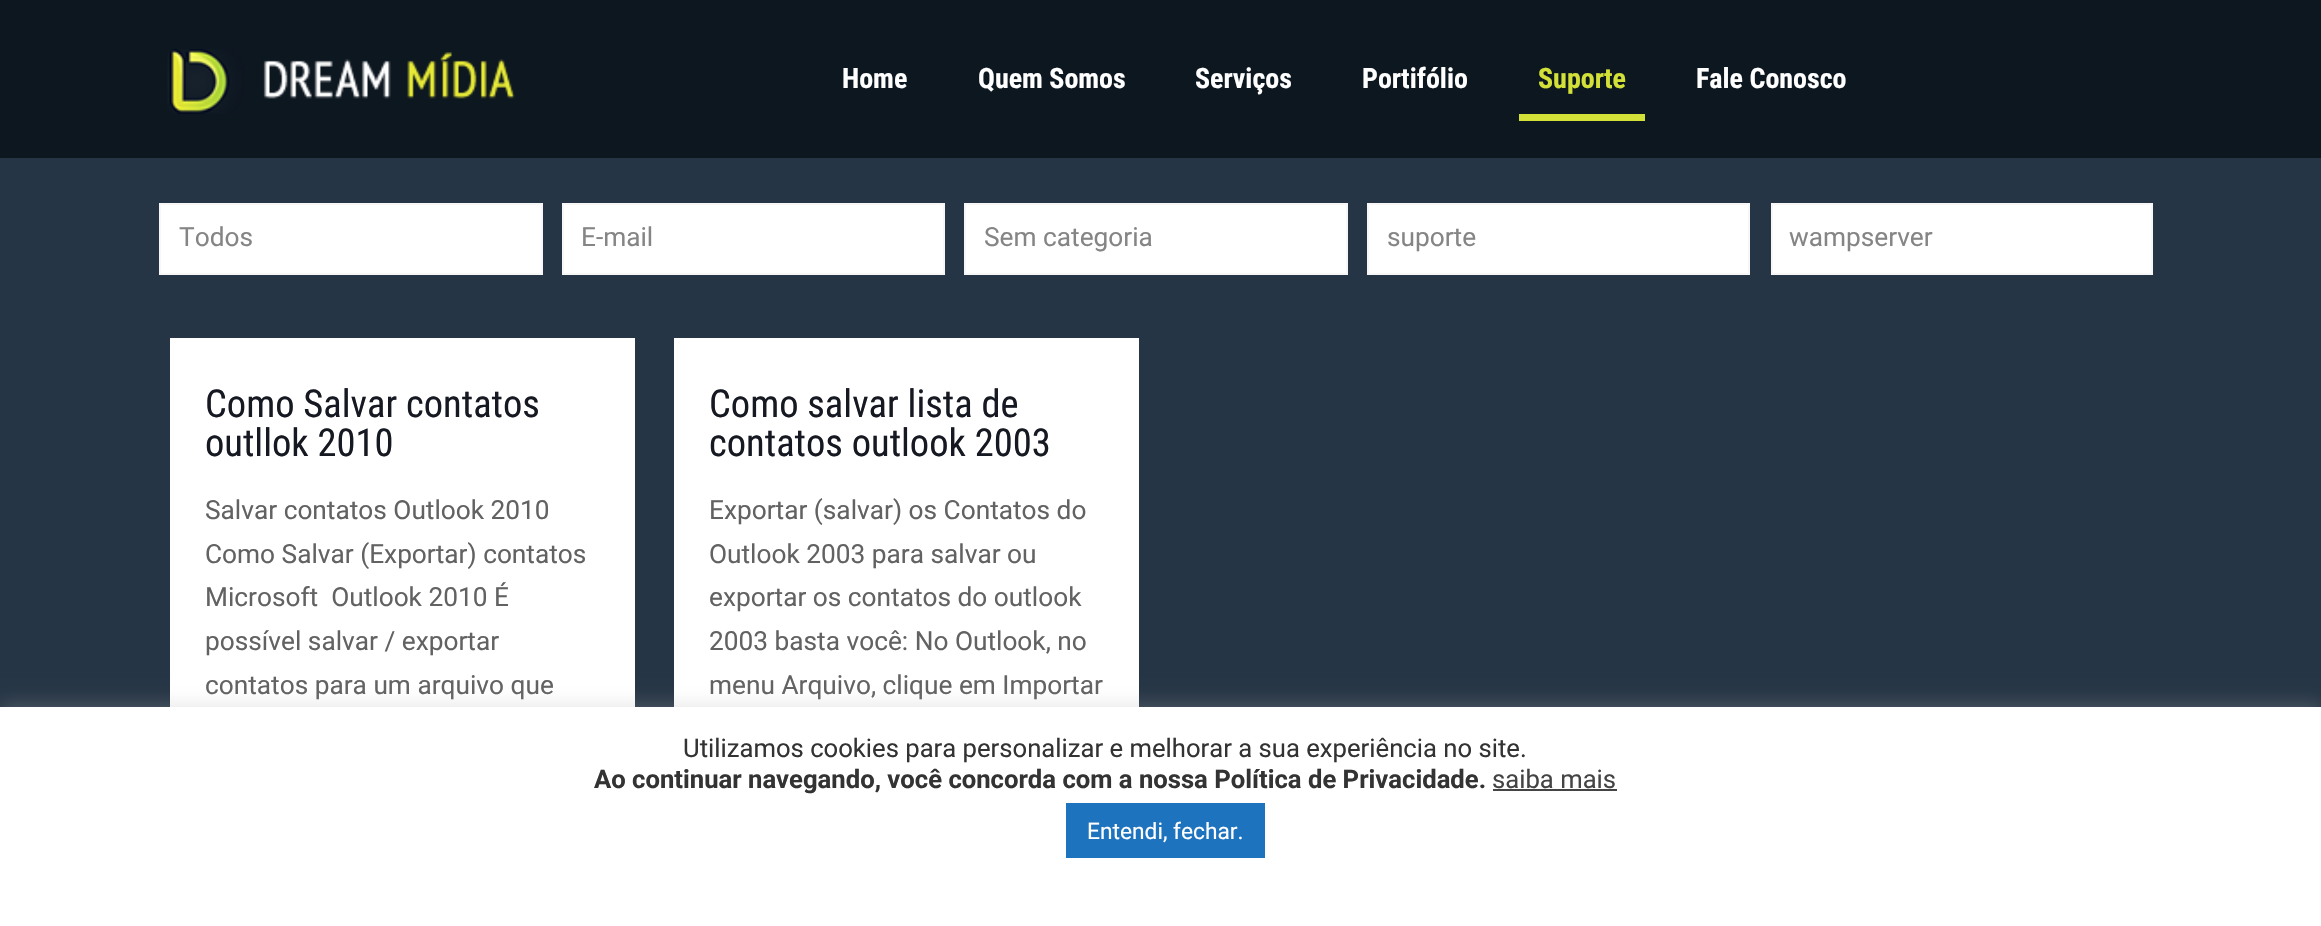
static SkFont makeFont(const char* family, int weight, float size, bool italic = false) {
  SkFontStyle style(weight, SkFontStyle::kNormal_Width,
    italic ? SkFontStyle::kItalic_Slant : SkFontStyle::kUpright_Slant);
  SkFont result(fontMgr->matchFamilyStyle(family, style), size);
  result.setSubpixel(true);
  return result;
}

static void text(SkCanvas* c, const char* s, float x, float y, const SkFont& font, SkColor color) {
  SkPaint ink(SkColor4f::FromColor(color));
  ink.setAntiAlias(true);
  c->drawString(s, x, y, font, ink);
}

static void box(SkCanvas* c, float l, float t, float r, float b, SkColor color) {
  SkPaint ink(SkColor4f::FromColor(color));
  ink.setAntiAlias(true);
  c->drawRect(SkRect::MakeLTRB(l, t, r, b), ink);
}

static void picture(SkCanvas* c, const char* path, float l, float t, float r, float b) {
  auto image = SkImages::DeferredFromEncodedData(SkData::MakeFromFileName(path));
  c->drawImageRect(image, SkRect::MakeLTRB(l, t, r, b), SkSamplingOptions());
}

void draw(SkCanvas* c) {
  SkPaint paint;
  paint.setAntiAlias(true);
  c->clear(0xff263545);
  box(c, 0, 0, 2321, 158, 0xff0d1720);
  picture(c, "img_01.png", 167, 49, 515, 114);
  SkFont face1 = makeFont("Roboto Condensed", 700, 28);
  text(c, "Home", 842, 88, face1, 0xffffffff);
  text(c, "Quem Somos", 978, 88, face1, 0xffffffff);
  text(c, "Serviços", 1195, 88, face1, 0xffffffff);
  text(c, "Portifólio", 1362, 88, face1, 0xffffffff);
  text(c, "Suporte", 1538, 88, face1, 0xffd2e037);
  box(c, 1519, 114, 1645, 121, 0xffd2e037);
  text(c, "Fale Conosco", 1696, 88, face1, 0xffffffff);
  paint.setColor(0xffffffff);
  c->drawRect(SkRect::MakeLTRB(160, 204, 542, 274), paint);
  paint.setStyle(SkPaint::kStroke_Style);
  paint.setStrokeWidth(2);
  paint.setColor(0xfff7f7f7);
  c->drawRect(SkRect::MakeLTRB(160, 204, 542, 274), paint);
  SkFont face2 = makeFont("Roboto", 400, 26.25f);
  text(c, "Todos", 179, 246, face2, 0xff858585);
  paint.setStyle(SkPaint::kFill_Style);
  paint.setColor(0xffffffff);
  c->drawRect(SkRect::MakeLTRB(563, 204, 944, 274), paint);
  paint.setStyle(SkPaint::kStroke_Style);
  paint.setColor(0xfff7f7f7);
  c->drawRect(SkRect::MakeLTRB(563, 204, 944, 274), paint);
  text(c, "E-mail", 581, 246, face2, 0xff858585);
  paint.setStyle(SkPaint::kFill_Style);
  paint.setColor(0xffffffff);
  c->drawRect(SkRect::MakeLTRB(965, 204, 1347, 274), paint);
  paint.setStyle(SkPaint::kStroke_Style);
  paint.setColor(0xfff7f7f7);
  c->drawRect(SkRect::MakeLTRB(965, 204, 1347, 274), paint);
  text(c, "Sem categoria", 984, 246, face2, 0xff858585);
  paint.setStyle(SkPaint::kFill_Style);
  paint.setColor(0xffffffff);
  c->drawRect(SkRect::MakeLTRB(1368, 204, 1749, 274), paint);
  paint.setStyle(SkPaint::kStroke_Style);
  paint.setColor(0xfff7f7f7);
  c->drawRect(SkRect::MakeLTRB(1368, 204, 1749, 274), paint);
  text(c, "suporte", 1387, 246, face2, 0xff858585);
  paint.setStyle(SkPaint::kFill_Style);
  paint.setColor(0xffffffff);
  c->drawRect(SkRect::MakeLTRB(1772, 204, 2152, 274), paint);
  paint.setStyle(SkPaint::kStroke_Style);
  paint.setColor(0xfff7f7f7);
  c->drawRect(SkRect::MakeLTRB(1772, 204, 2152, 274), paint);
  text(c, "wampserver", 1789, 246, face2, 0xff858585);
  box(c, 170, 338, 635, 707, 0xffffffff);
  SkFont face3 = makeFont("Roboto Condensed", 400, 38.5f);
  text(c, "Como Salvar contatos", 205, 417, face3, 0xff161922);
  text(c, "outllok 2010", 205, 456, face3, 0xff161922);
  text(c, "Salvar contatos Outlook 2010", 205, 519, face2, 0xff626262);
  text(c, "Como Salvar (Exportar) contatos", 205, 563, face2, 0xff626262);
  text(c, "Microsoft  Outlook 2010 É", 205, 606, face2, 0xff626262);
  text(c, "possível salvar / exportar", 205, 650, face2, 0xff626262);
  text(c, "contatos para um arquivo que", 205, 694, face2, 0xff626262);
  box(c, 674, 338, 1139, 707, 0xffffffff);
  text(c, "Como salvar lista de", 709, 417, face3, 0xff161922);
  text(c, "contatos outlook 2003", 709, 456, face3, 0xff161922);
  text(c, "Exportar (salvar) os Contatos do", 709, 519, face2, 0xff626262);
  text(c, "Outlook 2003 para salvar ou", 709, 563, face2, 0xff626262);
  text(c, "exportar os contatos do outlook", 709, 606, face2, 0xff626262);
  text(c, "2003 basta você: No Outlook, no", 709, 650, face2, 0xff626262);
  text(c, "menu Arquivo, clique em Importar", 709, 694, face2, 0xff626262);
  paint.setStyle(SkPaint::kFill_Style);
  paint.setColor(0x4dacabab);
  paint.setMaskFilter(SkMaskFilter::MakeBlur(kNormal_SkBlurStyle, 9));
  c->drawRect(SkRect::MakeLTRB(0, 705, 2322, 926), paint);
  paint.setMaskFilter(nullptr);
  box(c, 0, 707, 2321, 926, 0xffffffff);
  SkFont face4 = makeFont("Roboto", 400, 25.65f);
  text(c, "Utilizamos cookies para personalizar e melhorar a sua experiência no site.", 683, 757, face4, 0xff333333);
  SkFont face5 = makeFont("Roboto", 700, 25.65f);
  text(c, "Ao continuar navegando, você concorda com a nossa Política de Privacidade.", 594, 788, face5, 0xff333333);
  text(c, "saiba mais", 1492, 788, face4, 0xff444444);
  box(c, 1493, 789, 1617, 791, 0xff444444);
  box(c, 1066, 803, 1265, 858, 0xff1e73be);
  SkFont face6 = makeFont("Roboto", 400, 22.75f);
  text(c, "Entendi, fechar.", 1087, 839, face6, 0xffffffff);
}
